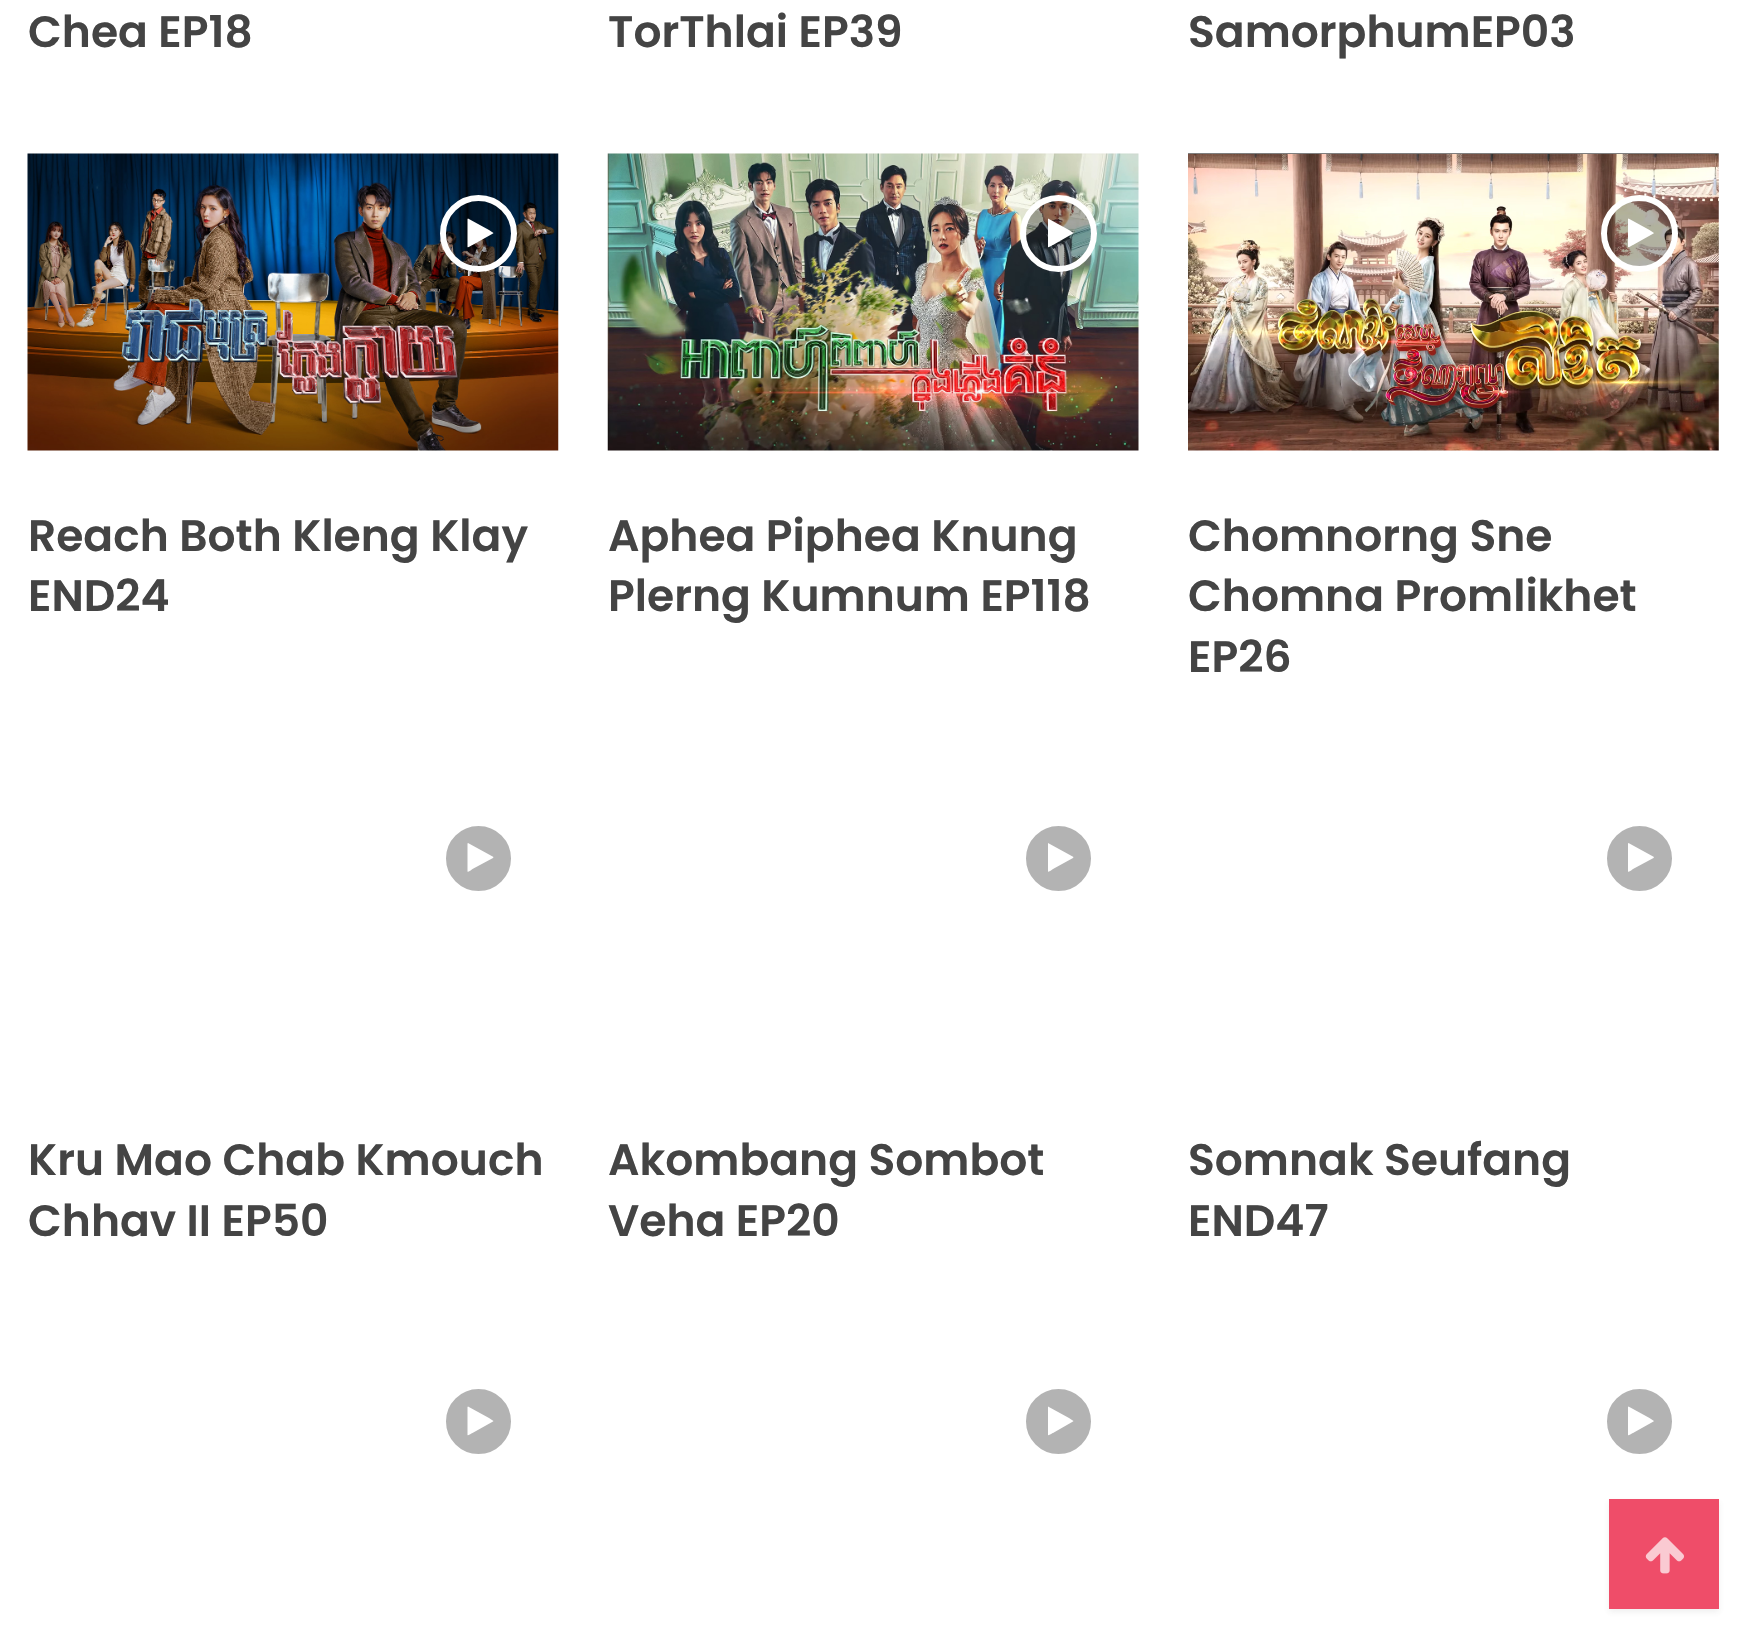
static SkFont makeFont(const char* family, int weight, float size, bool italic = false) {
  SkFontStyle style(weight, SkFontStyle::kNormal_Width,
    italic ? SkFontStyle::kItalic_Slant : SkFontStyle::kUpright_Slant);
  SkFont result(fontMgr->matchFamilyStyle(family, style), size);
  result.setSubpixel(true);
  return result;
}

static void text(SkCanvas* c, const char* s, float x, float y, const SkFont& font, SkColor color) {
  SkPaint ink(SkColor4f::FromColor(color));
  ink.setAntiAlias(true);
  c->drawString(s, x, y, font, ink);
}

static void box(SkCanvas* c, float l, float t, float r, float b, SkColor color) {
  SkPaint ink(SkColor4f::FromColor(color));
  ink.setAntiAlias(true);
  c->drawRect(SkRect::MakeLTRB(l, t, r, b), ink);
}

static void picture(SkCanvas* c, const char* path, float l, float t, float r, float b) {
  auto image = SkImages::DeferredFromEncodedData(SkData::MakeFromFileName(path));
  c->drawImageRect(image, SkRect::MakeLTRB(l, t, r, b), SkSamplingOptions());
}

void draw(SkCanvas* c) {
  SkPaint paint;
  paint.setAntiAlias(true);
  c->clear(0xffffffff);
  SkFont face1 = makeFont("Poppins", 600, 44);
  text(c, "Chea EP18", 28, 47, face1, 0xff444444);
  text(c, "TorThlai EP39", 608, 47, face1, 0xff444444);
  text(c, "SamorphumEP03", 1188, 47, face1, 0xff444444);
  picture(c, "img_01.png", 27, 153, 559, 451);
  paint.setColor(0x4d000000);
  c->drawCircle(478.5f, 233.5f, 35.5f, paint);
  paint.setStyle(SkPaint::kStroke_Style);
  paint.setStrokeWidth(6);
  paint.setColor(0xffffffff);
  c->drawCircle(478.5f, 233.5f, 35.5f, paint);
  paint.setStyle(SkPaint::kFill_Style);
  c->drawPath(SkPathBuilder().moveTo(493, 233.5f).lineTo(472.5f, 245).cubicTo(472, 245, 468.5f, 248, 467.5f, 247).lineTo(467.5f, 219).lineTo(468, 218.5f).lineTo(489, 230).lineTo(493.5f, 233).close().detach(), paint);
  text(c, "Reach Both Kleng Klay", 28, 551, face1, 0xff444444);
  text(c, "END24", 28, 611, face1, 0xff444444);
  picture(c, "img_02.png", 607, 153, 1139, 451);
  paint.setColor(0x4d000000);
  c->drawCircle(1058.5f, 233.5f, 35.5f, paint);
  paint.setStyle(SkPaint::kStroke_Style);
  paint.setColor(0xffffffff);
  c->drawCircle(1058.5f, 233.5f, 35.5f, paint);
  paint.setStyle(SkPaint::kFill_Style);
  c->drawPath(SkPathBuilder().moveTo(1073, 233.5f).lineTo(1053, 245).cubicTo(1052.5f, 245, 1048.5f, 248, 1048, 247).lineTo(1048, 219).lineTo(1048, 218.5f).lineTo(1069, 230).lineTo(1073.5f, 233).close().detach(), paint);
  text(c, "Aphea Piphea Knung", 608, 551, face1, 0xff444444);
  text(c, "Plerng Kumnum EP118", 608, 611, face1, 0xff444444);
  picture(c, "img_03.png", 1188, 153, 1719, 451);
  paint.setColor(0x4d000000);
  c->drawCircle(1639.5f, 233.5f, 35.5f, paint);
  paint.setStyle(SkPaint::kStroke_Style);
  paint.setColor(0xffffffff);
  c->drawCircle(1639.5f, 233.5f, 35.5f, paint);
  paint.setStyle(SkPaint::kFill_Style);
  c->drawPath(SkPathBuilder().moveTo(1653.5f, 233.5f).lineTo(1633, 245).cubicTo(1632.5f, 245, 1629, 248, 1628, 247).lineTo(1628, 219).lineTo(1628.5f, 218.5f).lineTo(1649.5f, 230).lineTo(1654, 233).close().detach(), paint);
  text(c, "Chomnorng Sne", 1188, 551, face1, 0xff444444);
  text(c, "Chomna Promlikhet", 1188, 611, face1, 0xff444444);
  text(c, "EP26", 1188, 672, face1, 0xff444444);
  paint.setColor(0xffb3b3b3);
  c->drawCircle(478.5f, 858.5f, 35.5f, paint);
  paint.setStyle(SkPaint::kStroke_Style);
  paint.setColor(0xffffffff);
  c->drawCircle(478.5f, 858.5f, 35.5f, paint);
  paint.setStyle(SkPaint::kFill_Style);
  c->drawPath(SkPathBuilder().moveTo(493, 858).lineTo(472.5f, 869).cubicTo(472, 869.5f, 468.5f, 872.5f, 467.5f, 871.5f).lineTo(467.5f, 843.5f).lineTo(468, 843).lineTo(489, 854.5f).lineTo(493.5f, 857).close().detach(), paint);
  text(c, "Kru Mao Chab Kmouch", 28, 1175, face1, 0xff444444);
  text(c, "Chhav II EP50", 28, 1236, face1, 0xff444444);
  paint.setColor(0xffb3b3b3);
  c->drawCircle(1058.5f, 858.5f, 35.5f, paint);
  paint.setStyle(SkPaint::kStroke_Style);
  paint.setColor(0xffffffff);
  c->drawCircle(1058.5f, 858.5f, 35.5f, paint);
  paint.setStyle(SkPaint::kFill_Style);
  c->drawPath(SkPathBuilder().moveTo(1073, 858).lineTo(1053, 869).cubicTo(1052.5f, 869.5f, 1048.5f, 872.5f, 1048, 871.5f).lineTo(1048, 843.5f).lineTo(1048, 843).lineTo(1069, 854.5f).lineTo(1073.5f, 857).close().detach(), paint);
  text(c, "Akombang Sombot", 608, 1175, face1, 0xff444444);
  text(c, "Veha EP20", 608, 1236, face1, 0xff444444);
  paint.setColor(0xffb3b3b3);
  c->drawCircle(1639.5f, 858.5f, 35.5f, paint);
  paint.setStyle(SkPaint::kStroke_Style);
  paint.setColor(0xffffffff);
  c->drawCircle(1639.5f, 858.5f, 35.5f, paint);
  paint.setStyle(SkPaint::kFill_Style);
  c->drawPath(SkPathBuilder().moveTo(1653.5f, 858).lineTo(1633, 869).cubicTo(1632.5f, 869.5f, 1629, 872.5f, 1628, 871.5f).lineTo(1628, 843.5f).lineTo(1628.5f, 843).lineTo(1649.5f, 854.5f).lineTo(1654, 857).close().detach(), paint);
  text(c, "Somnak Seufang", 1188, 1175, face1, 0xff444444);
  text(c, "END47", 1188, 1236, face1, 0xff444444);
  paint.setColor(0xffb3b3b3);
  c->drawCircle(478.5f, 1421.5f, 35.5f, paint);
  paint.setStyle(SkPaint::kStroke_Style);
  paint.setColor(0xffffffff);
  c->drawCircle(478.5f, 1421.5f, 35.5f, paint);
  paint.setStyle(SkPaint::kFill_Style);
  c->drawPath(SkPathBuilder().moveTo(493, 1421.5f).lineTo(472.5f, 1433).cubicTo(472, 1433, 468.5f, 1436, 467.5f, 1435).lineTo(467.5f, 1407).lineTo(468, 1406.5f).lineTo(489, 1418).lineTo(493.5f, 1421).close().detach(), paint);
  paint.setColor(0xffb3b3b3);
  c->drawCircle(1058.5f, 1421.5f, 35.5f, paint);
  paint.setStyle(SkPaint::kStroke_Style);
  paint.setColor(0xffffffff);
  c->drawCircle(1058.5f, 1421.5f, 35.5f, paint);
  paint.setStyle(SkPaint::kFill_Style);
  c->drawPath(SkPathBuilder().moveTo(1073, 1421.5f).lineTo(1053, 1433).cubicTo(1052.5f, 1433, 1048.5f, 1436, 1048, 1435).lineTo(1048, 1407).lineTo(1048, 1406.5f).lineTo(1069, 1418).lineTo(1073.5f, 1421).close().detach(), paint);
  paint.setColor(0xffb3b3b3);
  c->drawCircle(1639.5f, 1421.5f, 35.5f, paint);
  paint.setStyle(SkPaint::kStroke_Style);
  paint.setColor(0xffffffff);
  c->drawCircle(1639.5f, 1421.5f, 35.5f, paint);
  paint.setStyle(SkPaint::kFill_Style);
  c->drawPath(SkPathBuilder().moveTo(1653.5f, 1421.5f).lineTo(1633, 1433).cubicTo(1632.5f, 1433, 1629, 1436, 1628, 1435).lineTo(1628, 1407).lineTo(1628.5f, 1406.5f).lineTo(1649.5f, 1418).lineTo(1654, 1421).close().detach(), paint);
  paint.setColor(0x174d4d4d);
  paint.setMaskFilter(SkMaskFilter::MakeBlur(kNormal_SkBlurStyle, 3));
  c->drawRect(SkRect::MakeLTRB(1609, 1502, 1719, 1612), paint);
  paint.setMaskFilter(nullptr);
  box(c, 1609, 1499, 1719, 1609, 0xffef4d69);
  picture(c, "img_04.png", 1645, 1537, 1684, 1574);
}
